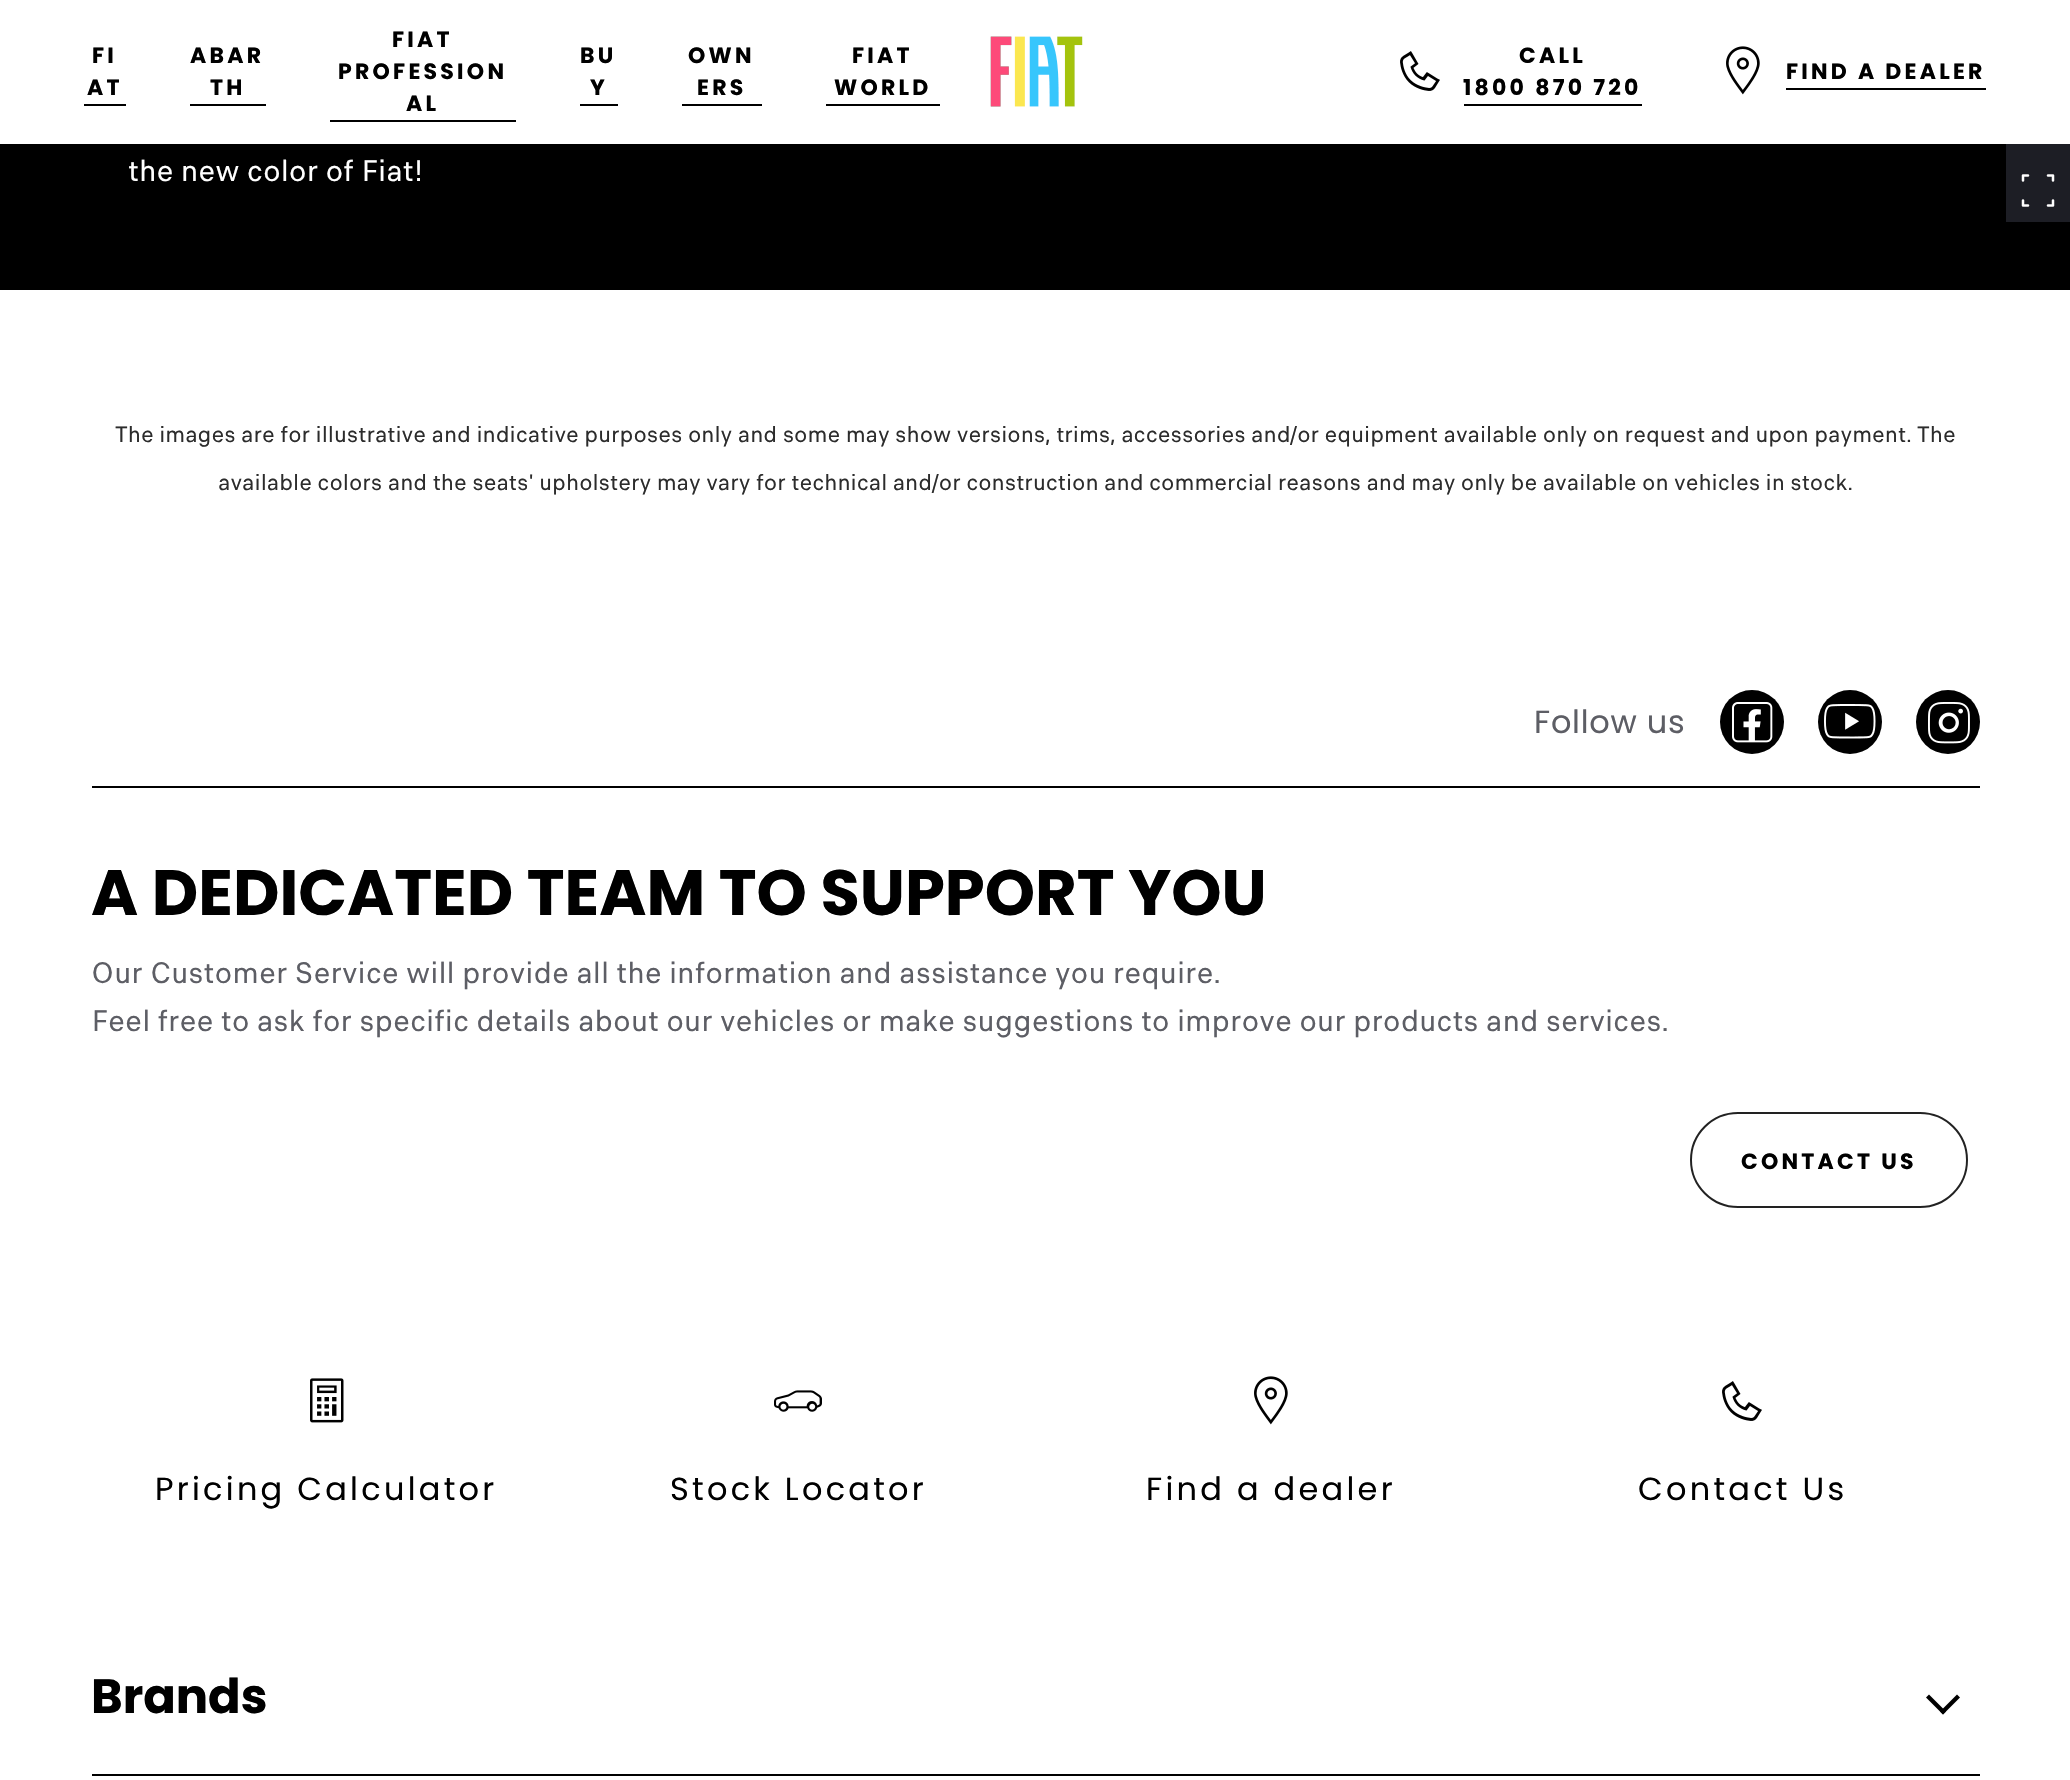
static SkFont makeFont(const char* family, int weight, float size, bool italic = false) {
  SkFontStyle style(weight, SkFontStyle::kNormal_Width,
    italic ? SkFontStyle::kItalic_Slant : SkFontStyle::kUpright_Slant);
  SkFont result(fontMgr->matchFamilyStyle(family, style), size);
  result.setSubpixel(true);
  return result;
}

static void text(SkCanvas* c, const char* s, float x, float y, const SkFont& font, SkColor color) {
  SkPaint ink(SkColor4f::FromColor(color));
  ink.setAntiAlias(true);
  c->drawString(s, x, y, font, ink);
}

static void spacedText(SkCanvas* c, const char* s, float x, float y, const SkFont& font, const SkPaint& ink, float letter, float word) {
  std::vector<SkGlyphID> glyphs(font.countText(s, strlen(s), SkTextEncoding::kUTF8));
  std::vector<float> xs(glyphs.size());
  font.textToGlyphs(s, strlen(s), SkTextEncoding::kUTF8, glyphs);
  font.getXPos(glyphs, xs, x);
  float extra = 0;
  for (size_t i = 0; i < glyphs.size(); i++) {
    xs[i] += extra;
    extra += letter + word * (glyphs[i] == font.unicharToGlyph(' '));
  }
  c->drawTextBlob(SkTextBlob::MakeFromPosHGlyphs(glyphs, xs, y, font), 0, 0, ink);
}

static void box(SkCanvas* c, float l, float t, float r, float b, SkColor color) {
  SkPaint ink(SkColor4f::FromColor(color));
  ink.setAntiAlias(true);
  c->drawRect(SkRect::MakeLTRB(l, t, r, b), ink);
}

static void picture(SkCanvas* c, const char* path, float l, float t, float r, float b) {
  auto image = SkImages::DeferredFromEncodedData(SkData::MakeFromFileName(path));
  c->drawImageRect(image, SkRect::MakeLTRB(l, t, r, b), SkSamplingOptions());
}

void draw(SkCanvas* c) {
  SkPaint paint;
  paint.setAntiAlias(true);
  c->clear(0xffffffff);
  box(c, 84, 104, 126, 106, 0xff000000);
  SkFont face1 = makeFont("Poppins", 700, 22);
  paint.setColor(0xff000000);
  spacedText(c, "FI", 92, 63, face1, paint, 3.25f, 0);
  spacedText(c, "AT", 87, 95, face1, paint, 3.25f, 0);
  box(c, 190, 104, 266, 106, 0xff000000);
  spacedText(c, "ABAR", 190, 63, face1, paint, 3.25f, 0);
  spacedText(c, "TH", 210, 95, face1, paint, 3.25f, 0);
  box(c, 330, 120, 516, 122, 0xff000000);
  spacedText(c, "FIAT", 392, 47, face1, paint, 3.25f, 0);
  spacedText(c, "PROFESSION", 338, 79, face1, paint, 3.25f, 0);
  spacedText(c, "AL", 406, 111, face1, paint, 3.25f, 0);
  box(c, 580, 104, 618, 106, 0xff000000);
  spacedText(c, "BU", 580, 63, face1, paint, 3.25f, 0);
  spacedText(c, "Y", 590, 95, face1, paint, 3.25f, 0);
  box(c, 682, 104, 762, 106, 0xff000000);
  spacedText(c, "OWN", 688, 63, face1, paint, 3.25f, 0);
  spacedText(c, "ERS", 697, 95, face1, paint, 3.25f, 0);
  box(c, 826, 104, 940, 106, 0xff000000);
  spacedText(c, "FIAT", 852, 63, face1, paint, 3.25f, 0);
  spacedText(c, "WORLD", 834, 95, face1, paint, 3.25f, 0);
  picture(c, "img_01.png", 990, 36, 1083, 107);
  picture(c, "img_02.png", 1400, 51, 1440, 91);
  box(c, 1464, 104, 1642, 106, 0xff000000);
  spacedText(c, "CALL", 1519, 63, face1, paint, 3.25f, 0);
  spacedText(c, "1800 870 720", 1463, 95, face1, paint, 3.25f, 0);
  picture(c, "img_03.png", 1726, 46, 1760, 95);
  box(c, 1786, 88, 1986, 90, 0xff000000);
  spacedText(c, "FIND A DEALER", 1786, 79, face1, paint, 3.25f, 0);
  box(c, 0, 144, 2070, 290, 0xff000000);
  SkFont face2 = makeFont("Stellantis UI", 400, 32);
  text(c, "the new color of Fiat!", 128, 181, face2, 0xffffffff);
  box(c, 2006, 144, 2070, 222, 0xff1d1e25);
  picture(c, "img_04.png", 2021, 174, 2055, 207);
  SkFont face3 = makeFont("Stellantis UI", 400, 24);
  text(c, "The images are for illustrative and indicative purposes only and some may show versions, trims, accessories and/or equipment available only on request and upon payment. The", 115, 442, face3, 0xff2c2c2c);
  text(c, "available colors and the seats' upholstery may vary for technical and/or construction and commercial reasons and may only be available on vehicles in stock.", 218, 490, face3, 0xff2c2c2c);
  box(c, 92, 786, 1980, 788, 0xff000000);
  SkFont face4 = makeFont("Poppins", 400, 32);
  paint.setColor(0xff5d5e65);
  spacedText(c, "Follow us", 1534, 733, face4, paint, 0.75f, 0);
  paint.setColor(0xff000000);
  c->drawCircle(1752, 722, 32, paint);
  picture(c, "img_05.png", 1732, 702, 1773, 743);
  c->drawCircle(1850, 722, 32, paint);
  picture(c, "img_06.png", 1824, 704, 1876, 739);
  c->drawCircle(1948, 722, 32, paint);
  picture(c, "img_07.png", 1928, 702, 1970, 744);
  SkFont face5 = makeFont("Poppins", 700, 64);
  text(c, "A DEDICATED TEAM TO SUPPORT YOU", 91, 915, face5, 0xff000000);
  text(c, "Our Customer Service will provide all the information and assistance you require.", 91, 983, face2, 0xff5d5e65);
  text(c, "Feel free to ask for specific details about our vehicles or make suggestions to improve our products and services.", 91, 1031, face2, 0xff5d5e65);
  paint.setStyle(SkPaint::kStroke_Style);
  paint.setStrokeWidth(2);
  paint.setColor(0xff222222);
  c->drawRoundRect(SkRect::MakeLTRB(1691, 1113, 1967, 1207), 47, 47, paint);
  paint.setStyle(SkPaint::kFill_Style);
  paint.setColor(0xff000000);
  spacedText(c, "CONTACT US", 1741, 1169, face1, paint, 3.25f, 0);
  picture(c, "img_08.png", 310, 1378, 344, 1423);
  spacedText(c, "Pricing Calculator", 155, 1500, face4, paint, 3.25f, 0);
  picture(c, "img_09.png", 774, 1390, 822, 1412);
  spacedText(c, "Stock Locator", 670, 1500, face4, paint, 3.25f, 0);
  picture(c, "img_03.png", 1254, 1376, 1288, 1425);
  spacedText(c, "Find a dealer", 1146, 1500, face4, paint, 3.25f, 0);
  picture(c, "img_02.png", 1722, 1381, 1762, 1421);
  spacedText(c, "Contact Us", 1638, 1500, face4, paint, 3.25f, 0);
  box(c, 92, 1774, 1980, 1776, 0xff000000);
  SkFont face6 = makeFont("Poppins", 700, 48);
  text(c, "Brands", 91, 1713, face6, 0xff000000);
  c->drawPath(SkPathBuilder().moveTo(1960, 1697.5f).lineTo(1943, 1714.5f).lineTo(1940, 1711.5f).lineTo(1957, 1694.5f).close().detach(), paint);
  c->drawPath(SkPathBuilder().moveTo(1946, 1711.5f).lineTo(1943, 1714.5f).lineTo(1926, 1697.5f).lineTo(1929, 1694.5f).close().detach(), paint);
}
